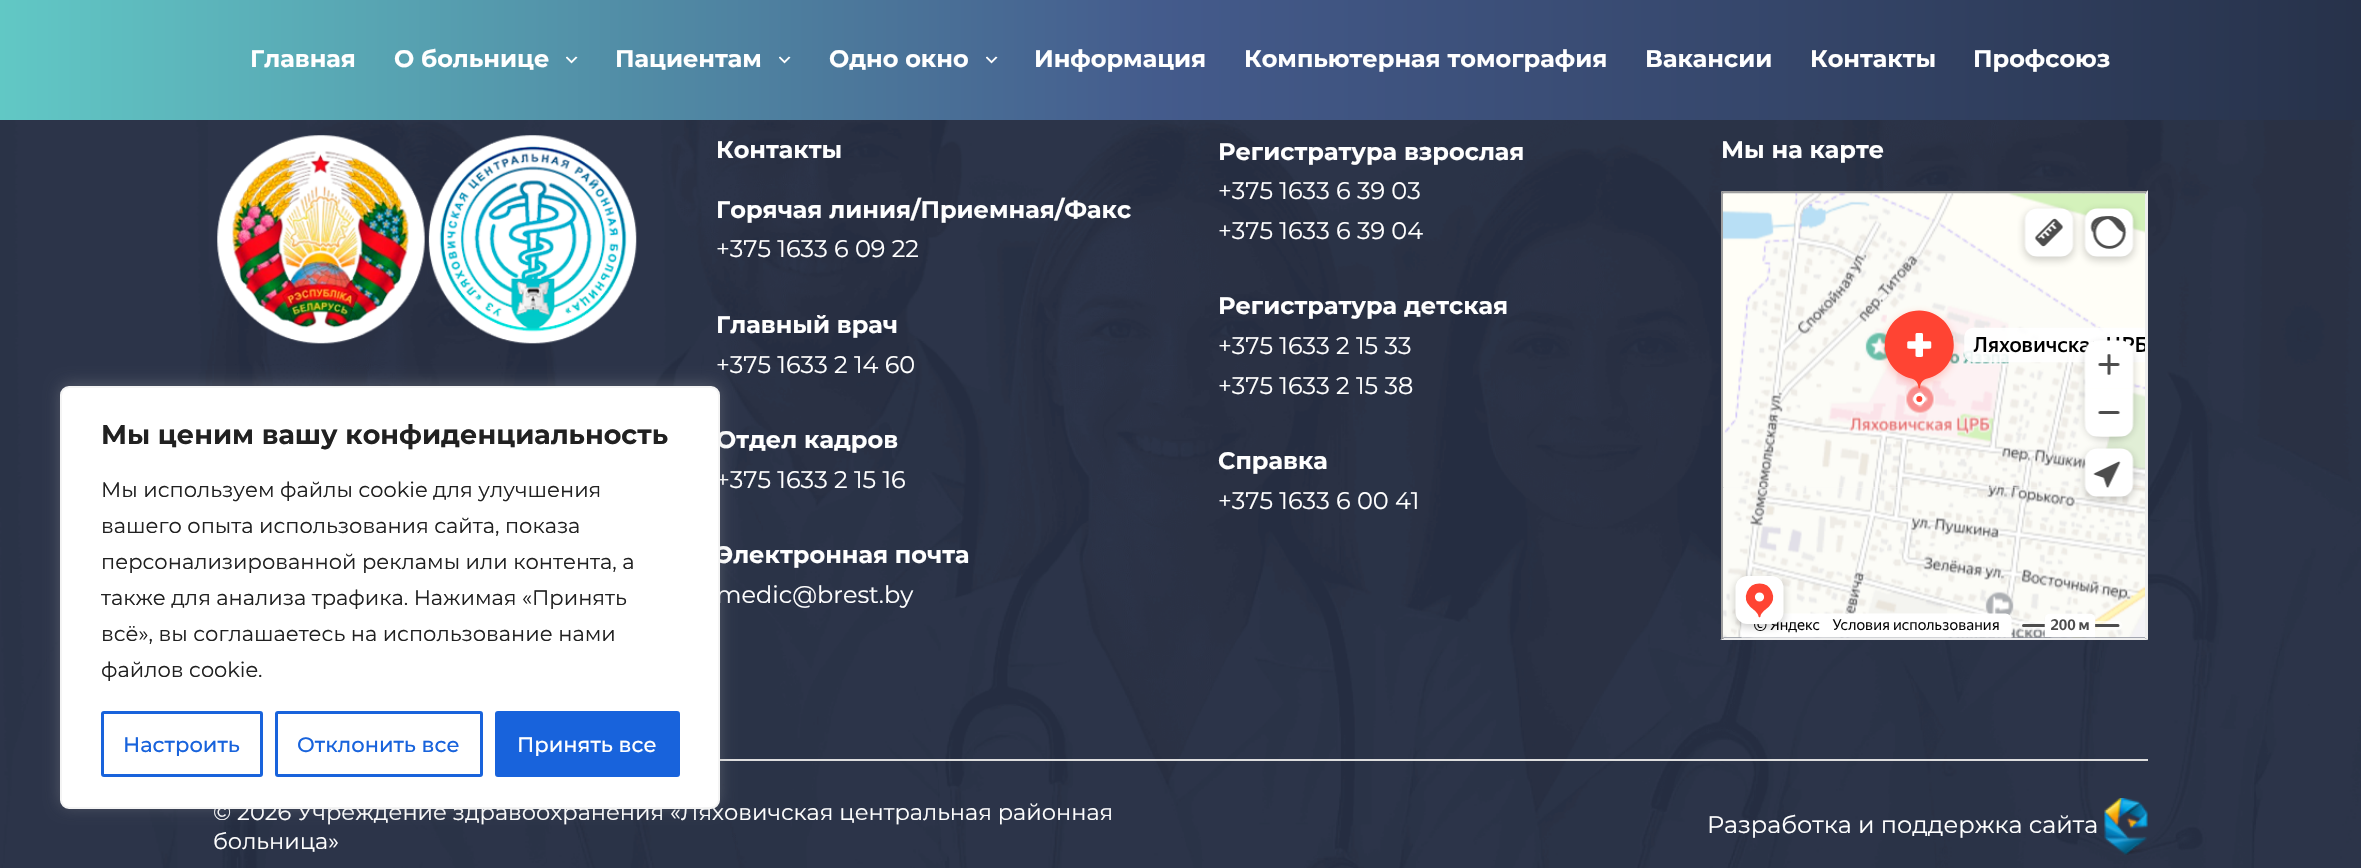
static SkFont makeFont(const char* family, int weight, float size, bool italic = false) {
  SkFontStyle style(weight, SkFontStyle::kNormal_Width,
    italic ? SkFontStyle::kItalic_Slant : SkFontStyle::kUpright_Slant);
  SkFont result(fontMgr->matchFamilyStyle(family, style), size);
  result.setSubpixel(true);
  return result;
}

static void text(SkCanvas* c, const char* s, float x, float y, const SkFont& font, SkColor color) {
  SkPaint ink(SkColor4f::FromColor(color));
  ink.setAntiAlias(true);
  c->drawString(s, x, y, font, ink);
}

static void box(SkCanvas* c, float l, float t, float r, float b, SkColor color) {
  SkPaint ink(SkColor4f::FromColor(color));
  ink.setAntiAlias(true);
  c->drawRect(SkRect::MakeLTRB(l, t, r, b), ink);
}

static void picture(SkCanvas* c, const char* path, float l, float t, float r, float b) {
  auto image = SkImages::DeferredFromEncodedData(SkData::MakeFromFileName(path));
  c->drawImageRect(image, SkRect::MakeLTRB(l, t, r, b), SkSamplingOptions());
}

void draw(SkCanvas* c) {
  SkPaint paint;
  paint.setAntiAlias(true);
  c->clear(0xffffffff);
  {
    const SkColor colors[] = {0xff61c8c5, 0xff445b8c, 0xff27324a};
    const float stops[] = {0, 0.49f, 1};
    const SkPoint ends[] = {{0, 60}, {2361, 60}};
    paint.setShader(SkGradientShader::MakeLinear(ends, colors, stops, 3, SkTileMode::kClamp));
    paint.setAlpha(255);
  }
  c->drawRect(SkRect::MakeLTRB(0, 0, 2361, 120), paint);
  SkFont face1 = makeFont("Montserrat", 700, 24);
  text(c, "Главная", 250, 67, face1, 0xffffffff);
  text(c, "О больнице", 394, 67, face1, 0xffffffff);
  picture(c, "img_01.png", 566, 56, 578, 64);
  text(c, "Пациентам", 615, 67, face1, 0xffffffff);
  picture(c, "img_02.png", 779, 56, 791, 64);
  text(c, "Одно окно", 829, 67, face1, 0xffffffff);
  picture(c, "img_03.png", 986, 56, 998, 64);
  text(c, "Информация", 1034, 67, face1, 0xffffffff);
  text(c, "Компьютерная томография", 1244, 67, face1, 0xffffffff);
  text(c, "Вакансии", 1645, 67, face1, 0xffffffff);
  text(c, "Контакты", 1810, 67, face1, 0xffffffff);
  text(c, "Профсоюз", 1973, 67, face1, 0xffffffff);
  picture(c, "img_04.png", 0, 120, 2361, 868);
  picture(c, "img_05.png", 217, 135, 637, 344);
  text(c, "Контакты", 716, 158, face1, 0xffffffff);
  text(c, "Горячая линия/Приемная/Факс", 716, 218, face1, 0xffffffff);
  SkFont face2 = makeFont("Montserrat", 400, 24);
  text(c, "+375 1633 6 09 22", 716, 257, face2, 0xffffffff);
  text(c, "Главный врач", 716, 333, face1, 0xffffffff);
  text(c, "+375 1633 2 14 60", 716, 373, face2, 0xffffffff);
  text(c, "Отдел кадров", 716, 448, face1, 0xffffffff);
  text(c, "+375 1633 2 15 16", 716, 488, face2, 0xffffffff);
  text(c, "Электронная почта", 716, 563, face1, 0xffffffff);
  text(c, "medic@brest.by", 716, 603, face2, 0xffffffff);
  text(c, "Регистратура взрослая", 1218, 160, face1, 0xffffffff);
  text(c, "+375 1633 6 39 03", 1218, 199, face2, 0xffffffff);
  text(c, "+375 1633 6 39 04", 1218, 239, face2, 0xffffffff);
  text(c, "Регистратура детская", 1218, 314, face1, 0xffffffff);
  text(c, "+375 1633 2 15 33", 1218, 354, face2, 0xffffffff);
  text(c, "+375 1633 2 15 38", 1218, 394, face2, 0xffffffff);
  text(c, "Справка", 1218, 469, face1, 0xffffffff);
  text(c, "+375 1633 6 00 41", 1218, 509, face2, 0xffffffff);
  text(c, "Мы на карте", 1721, 158, face1, 0xffffffff);
  c->save();
  c->clipRect(SkRect::MakeLTRB(1721, 191, 2148, 654));
  paint.setShader(nullptr);
  paint.setColor(0xff9f9f9f);
  c->drawPath(SkPathBuilder().moveTo(1720, 190).lineTo(2148, 190).lineTo(2145, 194).lineTo(1724, 194).close().detach(), paint);
  c->restore();
  paint.setColor(0xffeeeeee);
  c->drawPath(SkPathBuilder().moveTo(2148, 190).lineTo(2148, 640).lineTo(2145, 638).lineTo(2145, 194).close().detach(), paint);
  c->drawPath(SkPathBuilder().moveTo(2148, 640).lineTo(1720, 640).lineTo(1724, 638).lineTo(2145, 638).close().detach(), paint);
  c->save();
  c->clipRect(SkRect::MakeLTRB(1721, 191, 2148, 654));
  paint.setColor(0xff9f9f9f);
  c->drawPath(SkPathBuilder().moveTo(1720, 640).lineTo(1720, 190).lineTo(1724, 194).lineTo(1724, 638).close().detach(), paint);
  c->restore();
  picture(c, "img_06.png", 1723, 193, 2145, 638);
  box(c, 720, 759, 2148, 761, 0xffdddddd);
  SkFont face3 = makeFont("Montserrat", 400, 22.5f);
  text(c, "© 2026 Учреждение здравоохранения «Ляховичская центральная районная", 213, 820, face3, 0xffffffff);
  text(c, "больница»", 213, 849, face3, 0xffffffff);
  text(c, "Разработка и поддержка сайта", 1707, 833, face2, 0xffffffff);
  picture(c, "img_07.png", 2104, 798, 2148, 855);
  paint.setColor(0x4dacabab);
  paint.setMaskFilter(SkMaskFilter::MakeBlur(kNormal_SkBlurStyle, 7.5f));
  c->drawRoundRect(SkRect::MakeLTRB(60, 384, 720, 807), 9, 9, paint);
  paint.setMaskFilter(nullptr);
  paint.setColor(0xffffffff);
  c->drawRoundRect(SkRect::MakeLTRB(61, 387, 719, 808), 8, 8, paint);
  paint.setStyle(SkPaint::kStroke_Style);
  paint.setStrokeWidth(2);
  paint.setColor(0xfff4f4f4);
  c->drawRoundRect(SkRect::MakeLTRB(61, 387, 719, 808), 8, 8, paint);
  SkFont face4 = makeFont("Montserrat", 700, 27);
  text(c, "Мы ценим вашу конфиденциальность", 101, 444, face4, 0xff212121);
  SkFont face5 = makeFont("Montserrat", 400, 21);
  text(c, "Мы используем файлы cookie для улучшения", 101, 497, face5, 0xff212121);
  text(c, "вашего опыта использования сайта, показа", 101, 533, face5, 0xff212121);
  text(c, "персонализированной рекламы или контента, а", 101, 569, face5, 0xff212121);
  text(c, "также для анализа трафика. Нажимая «Принять", 101, 605, face5, 0xff212121);
  text(c, "всё», вы соглашаетесь на использование нами", 101, 641, face5, 0xff212121);
  text(c, "файлов cookie.", 101, 677, face5, 0xff212121);
  paint.setStrokeWidth(3);
  paint.setColor(0xff1863dc);
  c->drawRoundRect(SkRect::MakeLTRB(102.5f, 712.5f, 261.5f, 775.5f), 1.5f, 1.5f, paint);
  SkFont face6 = makeFont("Montserrat", 500, 21);
  text(c, "Настроить", 123, 752, face6, 0xff1863dc);
  c->drawRoundRect(SkRect::MakeLTRB(276.5f, 712.5f, 481.5f, 775.5f), 1.5f, 1.5f, paint);
  text(c, "Отклонить все", 297, 752, face6, 0xff1863dc);
  paint.setStyle(SkPaint::kFill_Style);
  c->drawRoundRect(SkRect::MakeLTRB(496.5f, 712.5f, 678.5f, 775.5f), 1.5f, 1.5f, paint);
  paint.setStyle(SkPaint::kStroke_Style);
  c->drawRoundRect(SkRect::MakeLTRB(496.5f, 712.5f, 678.5f, 775.5f), 1.5f, 1.5f, paint);
  text(c, "Принять все", 517, 752, face6, 0xffffffff);
}
